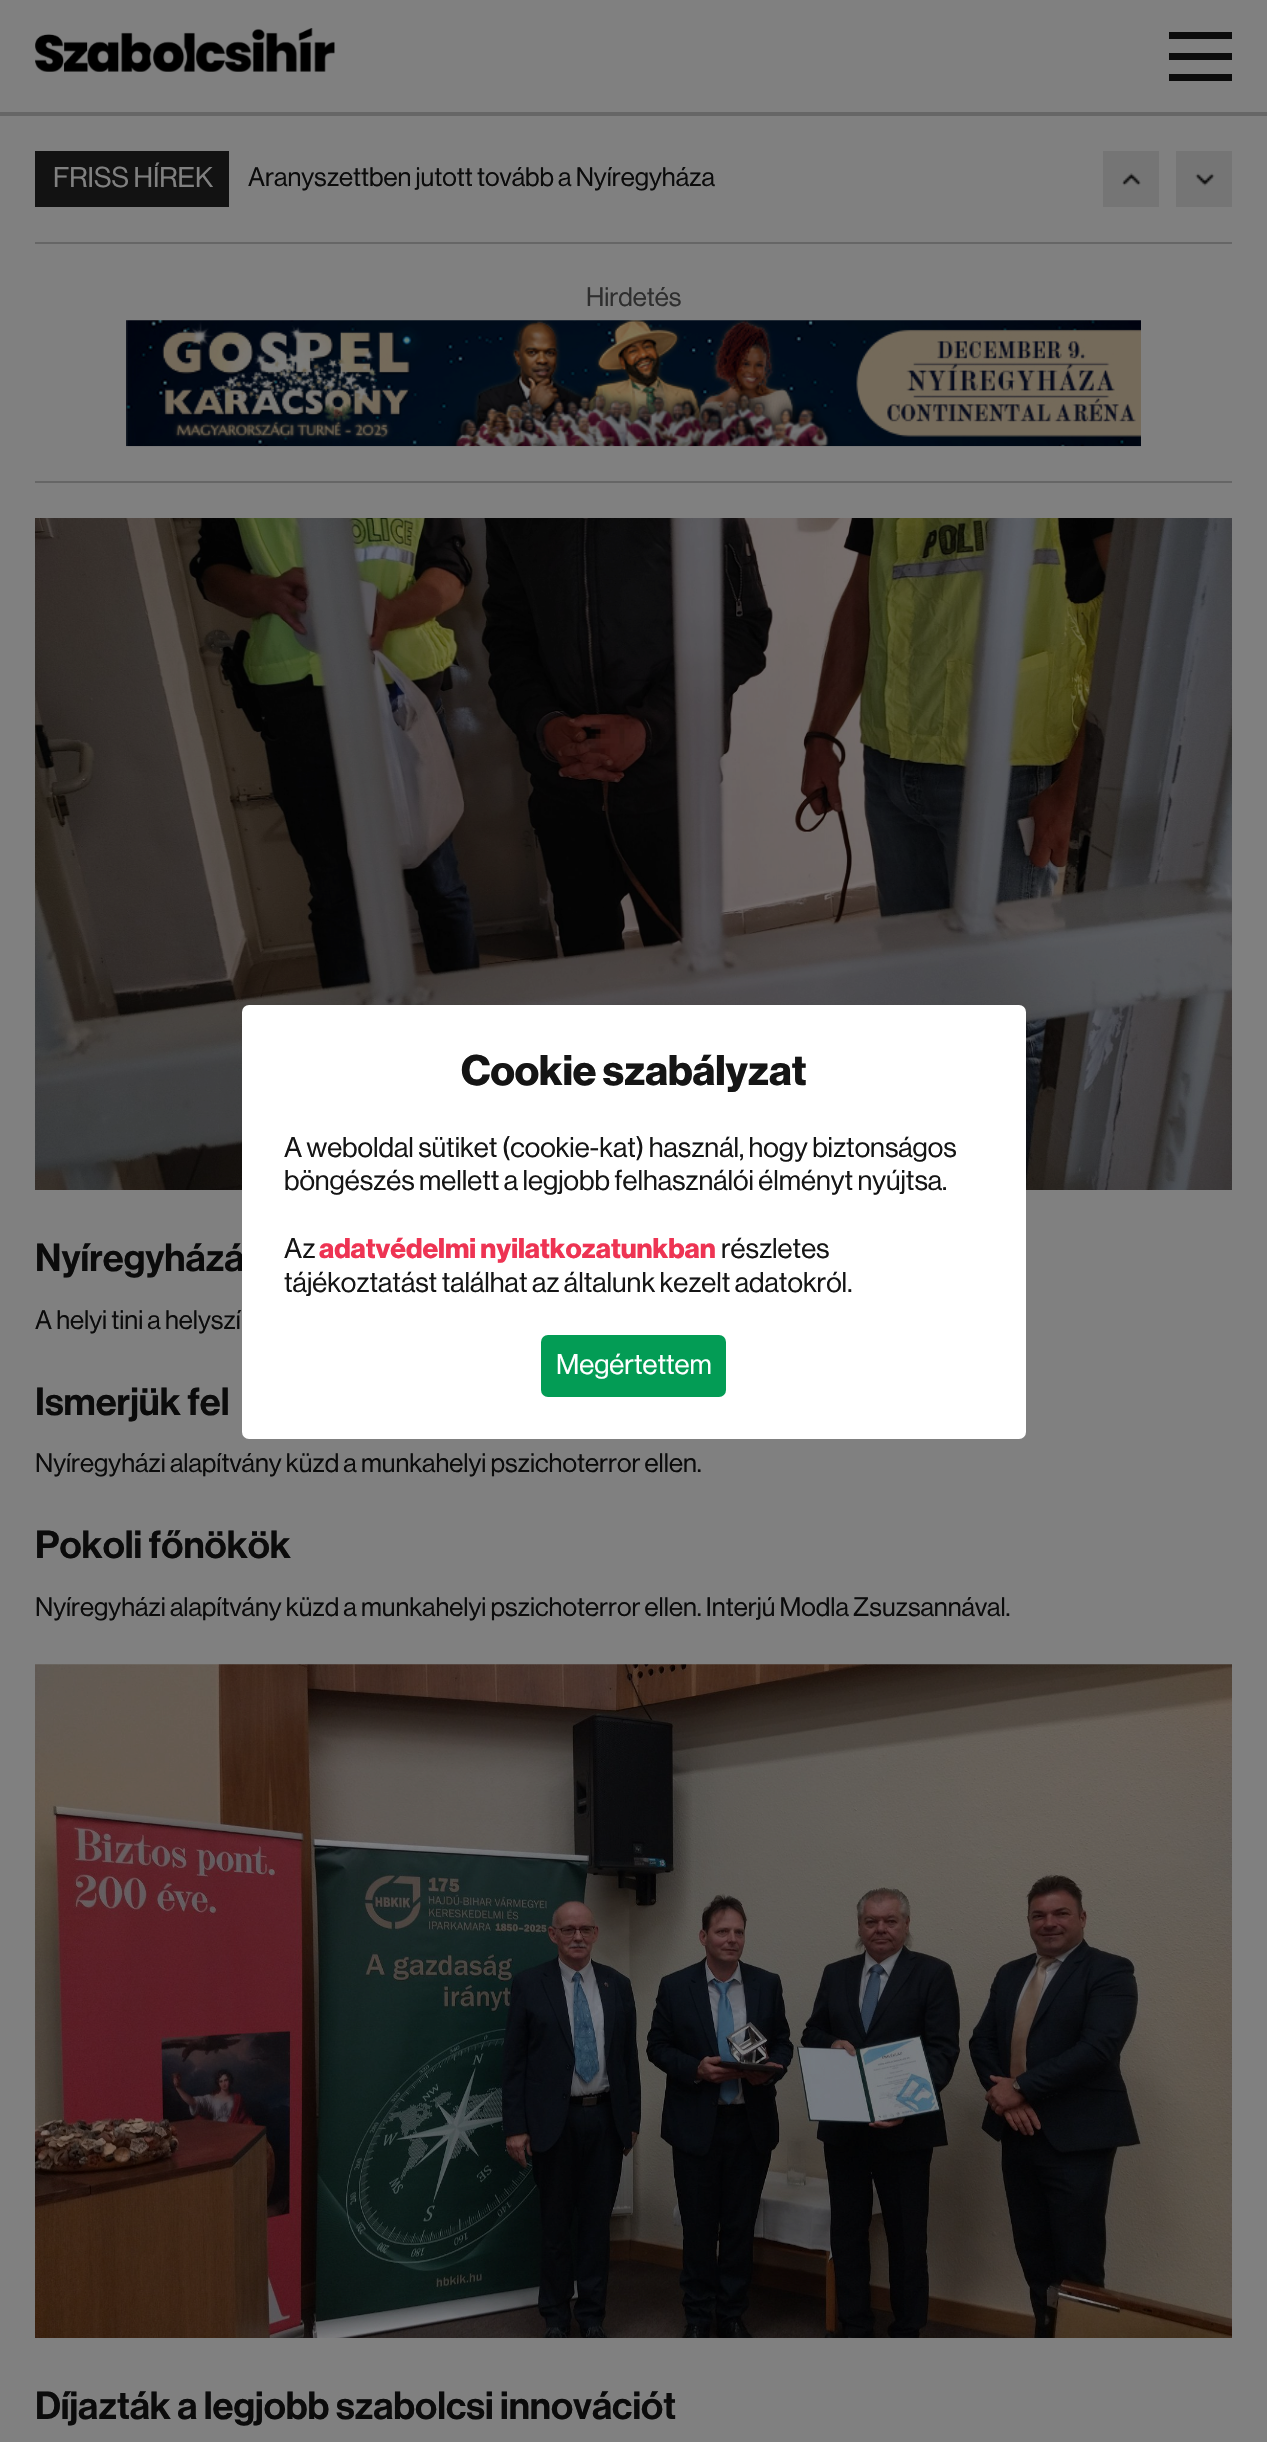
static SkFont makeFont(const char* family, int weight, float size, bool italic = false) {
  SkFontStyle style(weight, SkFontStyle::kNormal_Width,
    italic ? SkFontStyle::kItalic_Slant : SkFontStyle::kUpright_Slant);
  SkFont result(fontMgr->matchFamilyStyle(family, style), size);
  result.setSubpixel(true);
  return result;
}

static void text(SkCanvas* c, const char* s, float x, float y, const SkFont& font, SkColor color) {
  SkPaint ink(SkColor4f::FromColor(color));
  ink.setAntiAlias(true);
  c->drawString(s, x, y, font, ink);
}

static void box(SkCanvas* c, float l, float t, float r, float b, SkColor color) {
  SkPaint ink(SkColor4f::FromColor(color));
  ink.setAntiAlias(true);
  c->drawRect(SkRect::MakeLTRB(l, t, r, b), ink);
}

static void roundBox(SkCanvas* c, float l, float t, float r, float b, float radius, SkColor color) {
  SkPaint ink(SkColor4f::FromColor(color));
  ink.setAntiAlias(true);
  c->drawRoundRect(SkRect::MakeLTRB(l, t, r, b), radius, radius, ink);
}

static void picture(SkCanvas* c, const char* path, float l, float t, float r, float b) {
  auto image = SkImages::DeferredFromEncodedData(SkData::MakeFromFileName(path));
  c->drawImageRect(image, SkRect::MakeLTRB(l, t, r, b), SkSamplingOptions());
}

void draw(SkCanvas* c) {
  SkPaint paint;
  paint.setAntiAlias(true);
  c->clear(0xff808080);
  box(c, 0, 112, 1267, 116, 0xff666666);
  picture(c, "img_01.png", 35, 28, 335, 72);
  box(c, 1169, 32, 1232, 39, 0xff0b0b0b);
  box(c, 1169, 53, 1232, 60, 0xff0b0b0b);
  box(c, 1169, 74, 1232, 81, 0xff0b0b0b);
  box(c, 35, 151, 229, 207, 0xff121212);
  SkFont face1 = makeFont("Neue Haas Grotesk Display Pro", 400, 28);
  text(c, "FRISS HÍREK", 53, 187, face1, 0xff808080);
  SkFont face2 = makeFont("Neue Haas Grotesk Display Pro", 400, 26.25f);
  text(c, "Aranyszettben jutott tovább a Nyíregyháza", 248, 186, face2, 0xff0b0b0b);
  box(c, 1103, 151, 1159, 207, 0xff757575);
  picture(c, "img_02.png", 1122, 173, 1141, 186);
  box(c, 1176, 151, 1232, 207, 0xff757575);
  picture(c, "img_03.png", 1195, 173, 1215, 186);
  box(c, 35, 242, 1232, 244, 0xff666666);
  text(c, "Hirdetés", 586, 306, face2, 0xff2e2e2e);
  picture(c, "img_04.png", 126, 320, 1141, 447);
  box(c, 35, 481, 1232, 483, 0xff666666);
  picture(c, "img_05.png", 35, 518, 1232, 1190);
  SkFont face3 = makeFont("Neue Haas Grotesk Display Pro", 600, 38.5f);
  text(c, "Nyíregyházá", 35, 1271, face3, 0xff0b0b0b);
  text(c, "A helyi tini a helyszí", 35, 1329, face2, 0xff0b0b0b);
  text(c, "Ismerjük fel", 35, 1415, face3, 0xff0b0b0b);
  text(c, "Nyíregyházi alapítvány küzd a munkahelyi pszichoterror ellen.", 35, 1472, face2, 0xff0b0b0b);
  text(c, "Pokoli főnökök", 35, 1558, face3, 0xff0b0b0b);
  text(c, "Nyíregyházi alapítvány küzd a munkahelyi pszichoterror ellen. Interjú Modla Zsuzsannával.", 35, 1616, face2, 0xff0b0b0b);
  picture(c, "img_06.png", 35, 1664, 1232, 2338);
  text(c, "Díjazták a legjobb szabolcsi innovációt", 35, 2419, face3, 0xff0b0b0b);
  roundBox(c, 242, 1005, 1026, 1439, 7, 0xffffffff);
  SkFont face4 = makeFont("Neue Haas Grotesk Display Pro", 700, 42);
  text(c, "Cookie szabályzat", 461, 1085, face4, 0xff151515);
  text(c, "A weboldal sütiket (cookie-kat) használ, hogy biztonságos", 284, 1157, face1, 0xff151515);
  text(c, "böngészés mellett a legjobb felhasználói élményt nyújtsa.", 284, 1190, face1, 0xff151515);
  text(c, "Az", 284, 1258, face1, 0xff151515);
  SkFont face5 = makeFont("Neue Haas Grotesk Display Pro", 700, 28);
  text(c, "adatvédelmi nyilatkozatunkban", 319, 1258, face5, 0xffee3453);
  text(c, "részletes", 721, 1258, face1, 0xff151515);
  text(c, "tájékoztatást találhat az általunk kezelt adatokról.", 284, 1292, face1, 0xff151515);
  roundBox(c, 541, 1335, 726, 1397, 7, 0xff039c55);
  text(c, "Megértettem", 556, 1374, face1, 0xffffffff);
}
